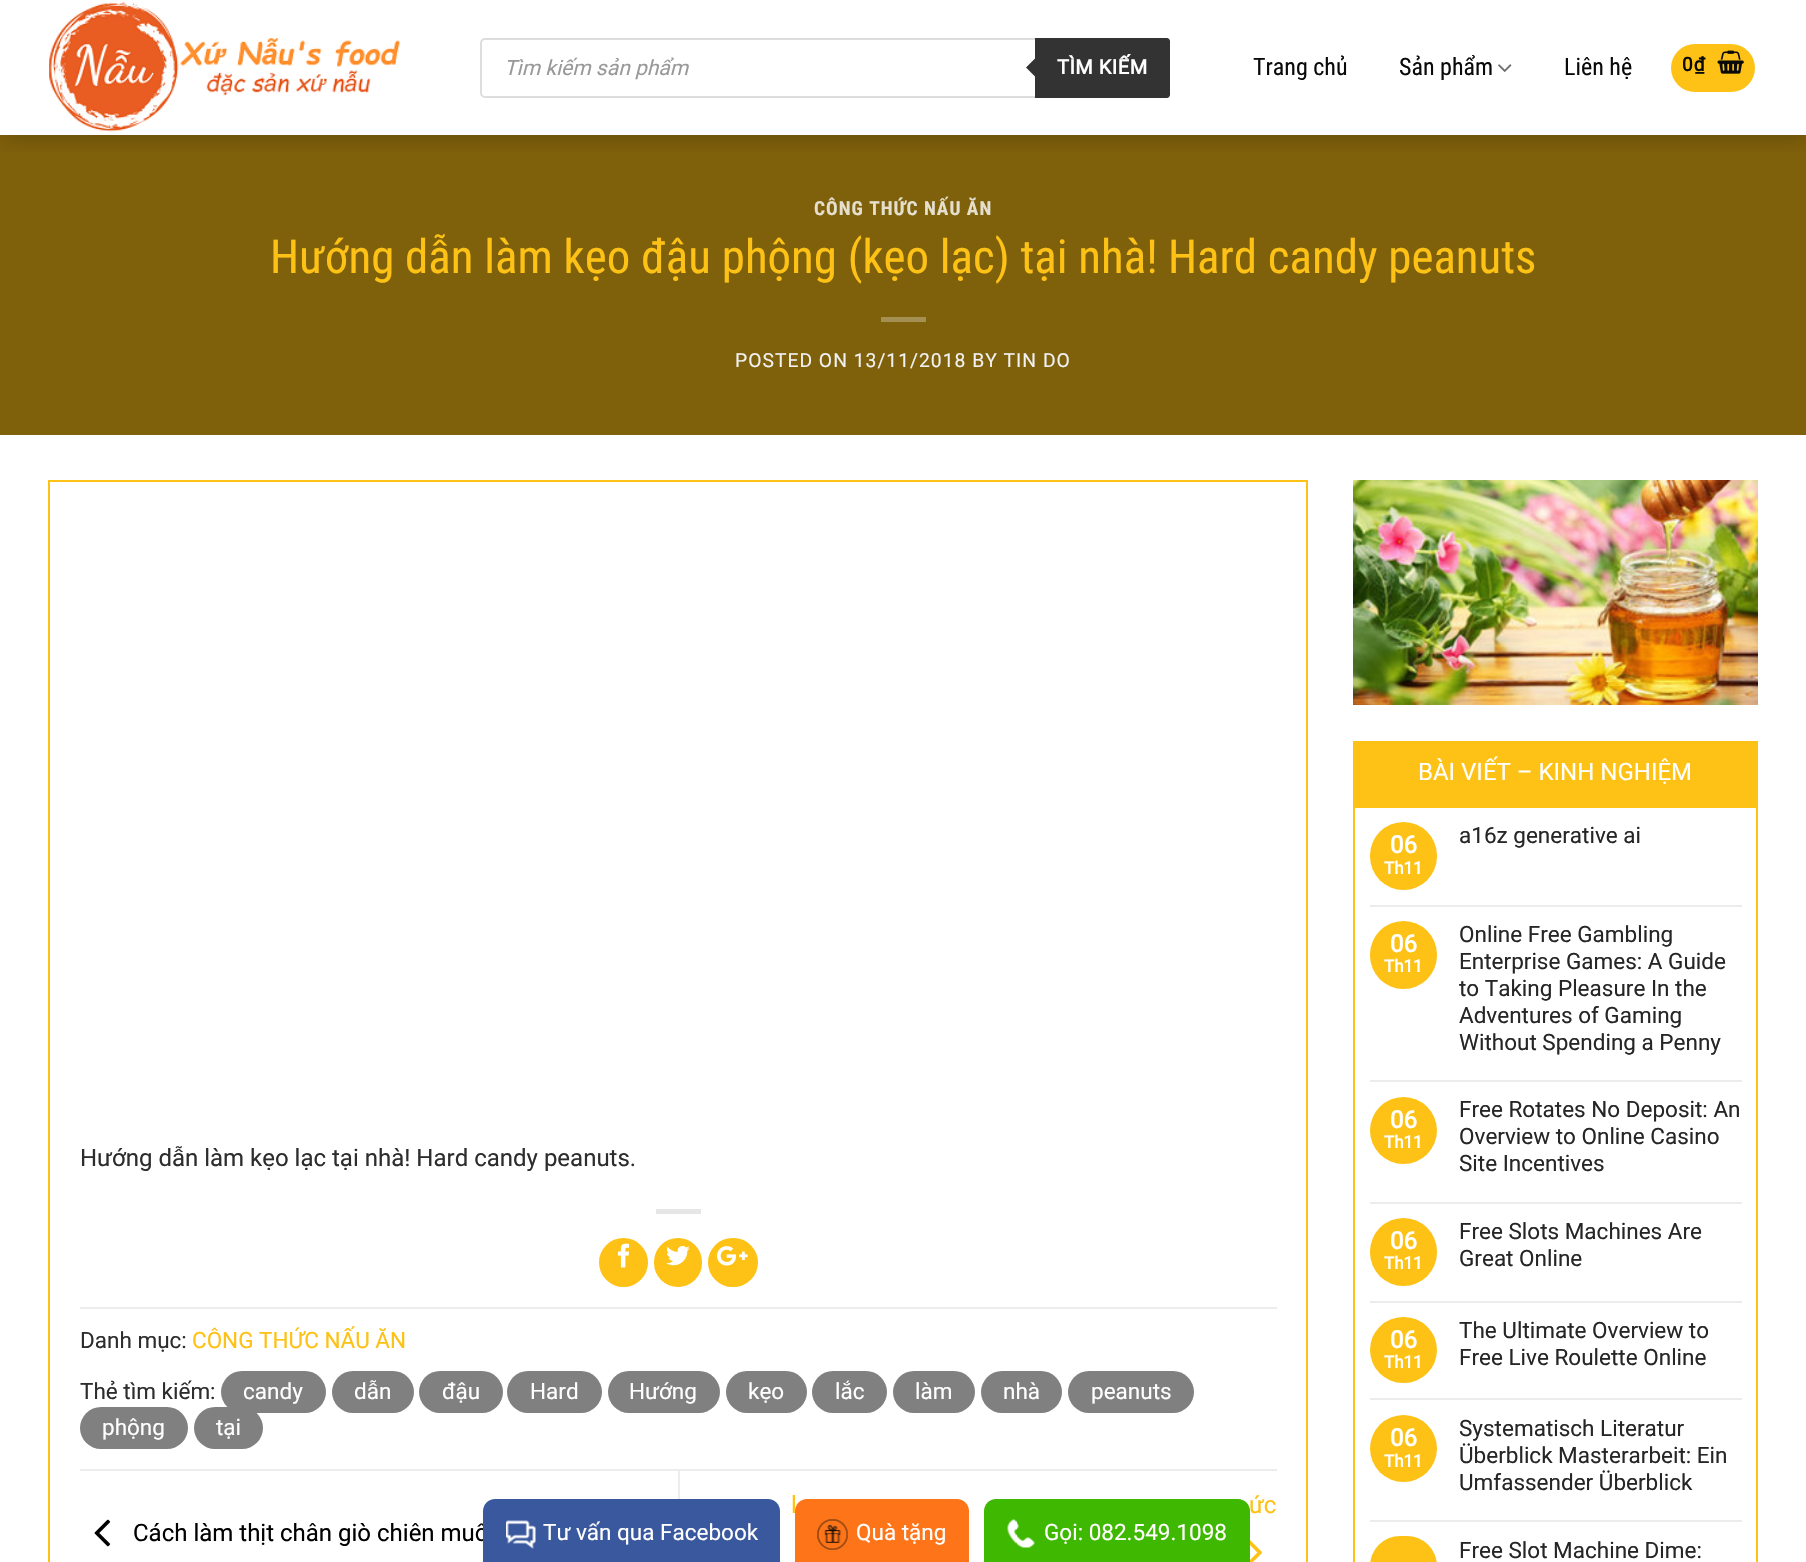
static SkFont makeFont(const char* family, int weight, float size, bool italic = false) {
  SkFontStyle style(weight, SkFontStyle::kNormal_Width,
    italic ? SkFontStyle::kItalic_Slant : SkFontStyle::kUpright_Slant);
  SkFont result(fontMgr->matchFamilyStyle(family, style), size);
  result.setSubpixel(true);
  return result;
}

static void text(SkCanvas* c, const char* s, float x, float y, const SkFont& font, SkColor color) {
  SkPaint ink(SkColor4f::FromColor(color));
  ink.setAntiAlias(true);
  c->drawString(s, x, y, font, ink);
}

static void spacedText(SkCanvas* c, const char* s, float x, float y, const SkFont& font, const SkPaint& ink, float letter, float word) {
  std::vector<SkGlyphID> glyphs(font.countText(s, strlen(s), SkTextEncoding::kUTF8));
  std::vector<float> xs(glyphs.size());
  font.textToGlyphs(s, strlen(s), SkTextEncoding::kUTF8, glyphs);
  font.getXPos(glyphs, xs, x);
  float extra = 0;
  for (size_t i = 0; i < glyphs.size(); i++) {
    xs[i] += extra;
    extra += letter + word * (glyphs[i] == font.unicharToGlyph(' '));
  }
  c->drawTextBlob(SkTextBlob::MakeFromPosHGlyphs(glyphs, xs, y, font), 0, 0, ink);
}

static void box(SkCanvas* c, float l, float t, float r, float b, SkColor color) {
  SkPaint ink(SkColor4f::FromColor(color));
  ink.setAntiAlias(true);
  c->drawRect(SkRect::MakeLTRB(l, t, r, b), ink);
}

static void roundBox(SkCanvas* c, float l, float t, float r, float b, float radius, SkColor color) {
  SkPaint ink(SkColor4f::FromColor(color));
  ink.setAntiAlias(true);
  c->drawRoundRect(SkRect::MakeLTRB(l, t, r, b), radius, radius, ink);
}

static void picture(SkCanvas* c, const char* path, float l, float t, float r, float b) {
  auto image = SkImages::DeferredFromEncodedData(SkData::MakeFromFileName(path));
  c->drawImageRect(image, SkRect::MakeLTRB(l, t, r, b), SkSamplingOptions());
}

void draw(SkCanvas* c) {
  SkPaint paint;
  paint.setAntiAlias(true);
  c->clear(0xffffffff);
  box(c, 0, 135, 1806, 435, 0xff7f600b);
  c->save();
  c->clipRect(SkRect::MakeLTRB(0, 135, 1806, 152));
  paint.setColor(0x33000000);
  paint.setMaskFilter(SkMaskFilter::MakeBlur(kNormal_SkBlurStyle, 11));
  c->drawRect(SkRect::MakeLTRB(3, 3, 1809, 138), paint);
  paint.setMaskFilter(nullptr);
  c->restore();
  picture(c, "img_01.png", 49, 2, 400, 132);
  paint.setStyle(SkPaint::kStroke_Style);
  paint.setStrokeWidth(2);
  paint.setColor(0xffdddddd);
  c->drawRoundRect(SkRect::MakeLTRB(481, 39, 1169, 97), 4, 4, paint);
  SkFont face1 = makeFont("Roboto", 400, 21, true);
  text(c, "Tìm kiếm sản phẩm", 504, 75, face1, 0xff999999);
  paint.setStyle(SkPaint::kFill_Style);
  paint.setColor(0xff333333);
  c->drawPath(SkPathBuilder().moveTo(1035, 38).lineTo(1167, 38).cubicTo(1168.5f, 38, 1170, 39.5f, 1170, 41).lineTo(1170, 95).cubicTo(1170, 96.5f, 1168.5f, 98, 1167, 98).lineTo(1035, 98).close().detach(), paint);
  c->drawPath(SkPathBuilder().moveTo(1038, 55.5f).lineTo(1038, 79.5f).lineTo(1026, 67.5f).close().detach(), paint);
  SkFont face2 = makeFont("Roboto", 700, 20);
  paint.setColor(0xffffffff);
  spacedText(c, "TÌM KIẾM", 1057, 74, face2, paint, 0.5f, 0);
  SkFont face3 = makeFont("Roboto Condensed", 400, 24);
  text(c, "Trang chủ", 1253, 75, face3, 0xff0a0a0a);
  text(c, "Sản phẩm", 1399, 75, face3, 0xff0a0a0a);
  picture(c, "img_02.png", 1498, 64, 1512, 72);
  text(c, "Liên hệ", 1564, 75, face3, 0xff0a0a0a);
  roundBox(c, 1671, 44, 1755, 92, 24, 0xfffdc215);
  SkFont face4 = makeFont("Roboto", 700, 19);
  paint.setColor(0xff0a0a0a);
  spacedText(c, "0₫", 1682, 71, face4, paint, 1, 0);
  picture(c, "img_03.png", 1717, 50, 1744, 74);
  SkFont face5 = makeFont("Roboto Condensed", 700, 19.3f);
  paint.setColor(0xffe5dfce);
  spacedText(c, "CÔNG THỨC NẤU ĂN", 814, 215, face5, paint, 1, 0);
  SkFont face6 = makeFont("Roboto Condensed", 400, 46.9f);
  text(c, "Hướng dẫn làm kẹo đậu phộng (kẹo lạc) tại nhà!", 270, 273, face6, 0xfffdc215);
  text(c, "Hard candy peanuts", 1168, 273, face6, 0xfffdc215);
  box(c, 881, 317, 926, 322, 0xffa59054);
  SkFont face7 = makeFont("Roboto", 400, 19.3f);
  paint.setColor(0xfff1f1f1);
  spacedText(c, "POSTED ON 13/11/2018 BY TIN DO", 735, 367, face7, paint, 1, 0);
  paint.setStyle(SkPaint::kStroke_Style);
  paint.setColor(0xfffdc215);
  c->drawRect(SkRect::MakeLTRB(49, 481, 1307, 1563), paint);
  SkFont face8 = makeFont("Roboto", 400, 24);
  text(c, "Hướng dẫn làm kẹo lạc tại nhà! Hard candy peanuts.", 80, 1166, face8, 0xff2d2d2d);
  box(c, 656, 1209, 701, 1214, 0xffe6e6e6);
  paint.setStyle(SkPaint::kFill_Style);
  c->drawCircle(623.5f, 1262.5f, 24.5f, paint);
  picture(c, "img_04.png", 617, 1243, 629, 1268);
  roundBox(c, 654, 1238, 702, 1287, 24, 0xfffdc215);
  picture(c, "img_05.png", 666, 1246, 690, 1266);
  roundBox(c, 708, 1238, 758, 1287, 24.5f, 0xfffdc215);
  picture(c, "img_06.png", 717, 1246, 748, 1266);
  box(c, 80, 1307, 1277, 1309, 0xffececec);
  SkFont face9 = makeFont("Roboto", 400, 22.5f);
  text(c, "Danh mục:", 80, 1348, face9, 0xff2d2d2d);
  text(c, "CÔNG THỨC NẤU ĂN", 192, 1348, face9, 0xfffdc215);
  text(c, "Thẻ tìm kiếm:", 80, 1399, face9, 0xff2d2d2d);
  roundBox(c, 221, 1371, 326, 1413, 21, 0xff808080);
  text(c, "candy", 243, 1399, face9, 0xffffffff);
  roundBox(c, 332, 1371, 414, 1413, 21, 0xff808080);
  text(c, "dẫn", 354, 1399, face9, 0xffffffff);
  roundBox(c, 419, 1371, 503, 1413, 21, 0xff808080);
  text(c, "đậu", 442, 1399, face9, 0xffffffff);
  roundBox(c, 507, 1371, 602, 1413, 21, 0xff808080);
  text(c, "Hard", 530, 1399, face9, 0xffffffff);
  roundBox(c, 608, 1371, 720, 1413, 21, 0xff808080);
  text(c, "Hướng", 629, 1399, face9, 0xffffffff);
  roundBox(c, 726, 1371, 807, 1413, 21, 0xff808080);
  text(c, "kẹo", 748, 1399, face9, 0xffffffff);
  roundBox(c, 812, 1371, 887, 1413, 21, 0xff808080);
  text(c, "lắc", 835, 1399, face9, 0xffffffff);
  roundBox(c, 893, 1371, 975, 1413, 21, 0xff808080);
  text(c, "làm", 915, 1399, face9, 0xffffffff);
  roundBox(c, 981, 1371, 1062, 1413, 21, 0xff808080);
  text(c, "nhà", 1003, 1399, face9, 0xffffffff);
  roundBox(c, 1068, 1371, 1194, 1413, 21, 0xff808080);
  text(c, "peanuts", 1091, 1399, face9, 0xffffffff);
  roundBox(c, 80, 1407, 188, 1449, 21, 0xff808080);
  text(c, "phộng", 102, 1435, face9, 0xffffffff);
  roundBox(c, 194, 1407, 263, 1449, 21, 0xff808080);
  text(c, "tại", 216, 1435, face9, 0xffffffff);
  box(c, 80, 1469, 1277, 1471, 0xffececec);
  box(c, 678, 1470, 680, 1499, 0xffececec);
  text(c, "l", 791, 1513, face8, 0xfffdc215);
  text(c, "ức", 1249, 1513, face8, 0xfffdc215);
  picture(c, "img_07.png", 1250, 1540, 1263, 1562);
  picture(c, "img_08.png", 94, 1519, 111, 1547);
  text(c, "Cách làm thịt chân giò chiên muố", 133, 1541, face8, 0xff000000);
  picture(c, "img_09.png", 1353, 480, 1758, 705);
  box(c, 1353, 741, 1758, 806, 0xfffdc215);
  text(c, "BÀI VIẾT – KINH NGHIỆM", 1418, 780, face8, 0xffffffff);
  paint.setStyle(SkPaint::kStroke_Style);
  c->drawRect(SkRect::MakeLTRB(1354, 807, 1757, 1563), paint);
  roundBox(c, 1370, 822, 1437, 890, 33.5f, 0xfffdc215);
  SkFont face10 = makeFont("Roboto", 700, 24);
  text(c, "06", 1390, 853, face10, 0xffffffff);
  SkFont face11 = makeFont("Roboto", 700, 17);
  text(c, "Th11", 1384, 874, face11, 0xffffffff);
  text(c, "a16z generative ai", 1459, 843, face9, 0xff262626);
  box(c, 1370, 905, 1742, 907, 0xffececec);
  roundBox(c, 1370, 921, 1437, 989, 33.5f, 0xfffdc215);
  text(c, "06", 1390, 952, face10, 0xffffffff);
  text(c, "Th11", 1384, 972, face11, 0xffffffff);
  text(c, "Online Free Gambling", 1459, 942, face9, 0xff262626);
  text(c, "Enterprise Games: A Guide", 1459, 969, face9, 0xff262626);
  text(c, "to Taking Pleasure In the", 1459, 996, face9, 0xff262626);
  text(c, "Adventures of Gaming", 1459, 1023, face9, 0xff262626);
  text(c, "Without Spending a Penny", 1459, 1050, face9, 0xff262626);
  box(c, 1370, 1080, 1742, 1082, 0xffececec);
  paint.setStyle(SkPaint::kFill_Style);
  c->drawCircle(1403.5f, 1130.5f, 33.5f, paint);
  text(c, "06", 1390, 1128, face10, 0xffffffff);
  text(c, "Th11", 1384, 1148, face11, 0xffffffff);
  text(c, "Free Rotates No Deposit: An", 1459, 1117, face9, 0xff262626);
  text(c, "Overview to Online Casino", 1459, 1144, face9, 0xff262626);
  text(c, "Site Incentives", 1459, 1171, face9, 0xff262626);
  box(c, 1370, 1202, 1742, 1204, 0xffececec);
  roundBox(c, 1370, 1218, 1437, 1286, 33.5f, 0xfffdc215);
  text(c, "06", 1390, 1249, face10, 0xffffffff);
  text(c, "Th11", 1384, 1269, face11, 0xffffffff);
  text(c, "Free Slots Machines Are", 1459, 1239, face9, 0xff262626);
  text(c, "Great Online", 1459, 1266, face9, 0xff262626);
  box(c, 1370, 1301, 1742, 1303, 0xffececec);
  roundBox(c, 1370, 1317, 1437, 1383, 33, 0xfffdc215);
  text(c, "06", 1390, 1348, face10, 0xffffffff);
  text(c, "Th11", 1384, 1368, face11, 0xffffffff);
  text(c, "The Ultimate Overview to", 1459, 1338, face9, 0xff262626);
  text(c, "Free Live Roulette Online", 1459, 1365, face9, 0xff262626);
  box(c, 1370, 1398, 1742, 1400, 0xffececec);
  c->drawCircle(1403.5f, 1448.5f, 33.5f, paint);
  text(c, "06", 1390, 1446, face10, 0xffffffff);
  text(c, "Th11", 1384, 1467, face11, 0xffffffff);
  text(c, "Systematisch Literatur", 1459, 1436, face9, 0xff262626);
  text(c, "Überblick Masterarbeit: Ein", 1459, 1463, face9, 0xff262626);
  text(c, "Umfassender Überblick", 1459, 1490, face9, 0xff262626);
  box(c, 1370, 1520, 1742, 1522, 0xffececec);
  roundBox(c, 1370, 1536, 1437, 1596, 33.5f, 0xfffdc215);
  text(c, "Free Slot Machine Dime:", 1459, 1558, face9, 0xff262626);
  paint.setColor(0xff3a589d);
  c->drawPath(SkPathBuilder().moveTo(495, 1499).lineTo(543, 1499).lineTo(543, 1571).lineTo(483, 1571).lineTo(483, 1511).cubicTo(483, 1504.5f, 488.5f, 1499, 495, 1499).close().detach(), paint);
  c->drawPath(SkPathBuilder().moveTo(543, 1499).lineTo(768, 1499).cubicTo(774.5f, 1499, 780, 1504.5f, 780, 1511).lineTo(780, 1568).lineTo(543, 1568).close().detach(), paint);
  picture(c, "img_10.png", 506, 1520, 536, 1549);
  text(c, "Tư vấn qua Facebook", 543, 1540, face9, 0xffffffff);
  paint.setColor(0xfffd7518);
  c->drawPath(SkPathBuilder().moveTo(807, 1499).lineTo(855, 1499).lineTo(855, 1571).lineTo(795, 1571).lineTo(795, 1511).cubicTo(795, 1504.5f, 800.5f, 1499, 807, 1499).close().detach(), paint);
  c->drawPath(SkPathBuilder().moveTo(855, 1499).lineTo(957, 1499).cubicTo(963.5f, 1499, 969, 1504.5f, 969, 1511).lineTo(969, 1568).lineTo(855, 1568).close().detach(), paint);
  picture(c, "img_11.png", 817, 1519, 848, 1550);
  text(c, "Quà tặng", 856, 1540, face9, 0xffffffff);
  paint.setColor(0xff3fb801);
  c->drawPath(SkPathBuilder().moveTo(996, 1499).lineTo(1044, 1499).lineTo(1044, 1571).lineTo(984, 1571).lineTo(984, 1511).cubicTo(984, 1504.5f, 989.5f, 1499, 996, 1499).close().detach(), paint);
  c->drawPath(SkPathBuilder().moveTo(1044, 1499).lineTo(1238, 1499).cubicTo(1244.5f, 1499, 1250, 1504.5f, 1250, 1511).lineTo(1250, 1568).lineTo(1044, 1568).close().detach(), paint);
  picture(c, "img_12.png", 1007, 1519, 1035, 1548);
  text(c, "Gọi: 082.549.1098", 1044, 1540, face9, 0xffffffff);
}
